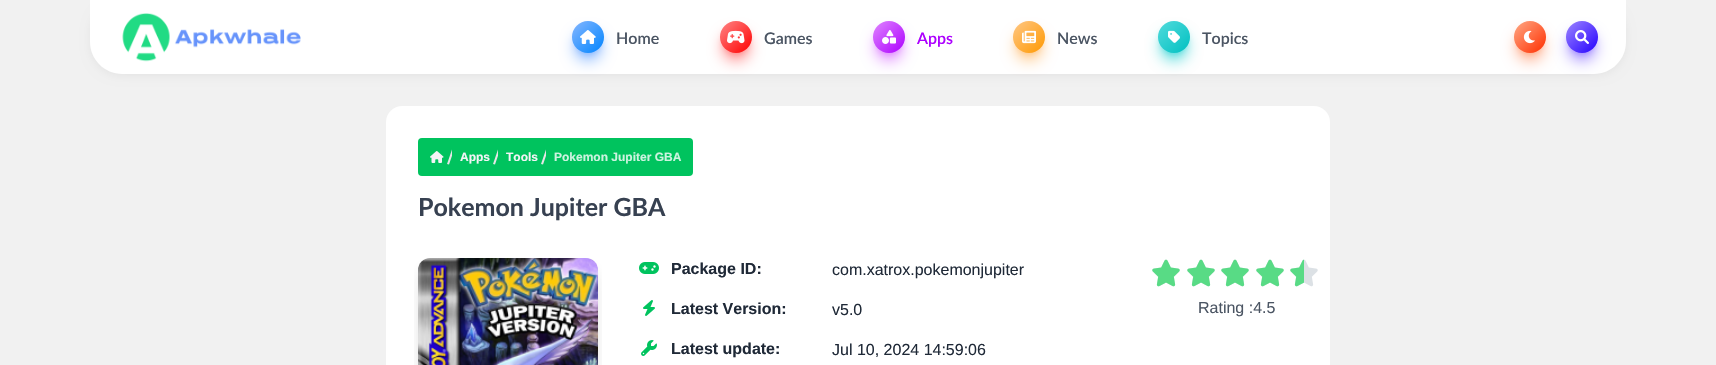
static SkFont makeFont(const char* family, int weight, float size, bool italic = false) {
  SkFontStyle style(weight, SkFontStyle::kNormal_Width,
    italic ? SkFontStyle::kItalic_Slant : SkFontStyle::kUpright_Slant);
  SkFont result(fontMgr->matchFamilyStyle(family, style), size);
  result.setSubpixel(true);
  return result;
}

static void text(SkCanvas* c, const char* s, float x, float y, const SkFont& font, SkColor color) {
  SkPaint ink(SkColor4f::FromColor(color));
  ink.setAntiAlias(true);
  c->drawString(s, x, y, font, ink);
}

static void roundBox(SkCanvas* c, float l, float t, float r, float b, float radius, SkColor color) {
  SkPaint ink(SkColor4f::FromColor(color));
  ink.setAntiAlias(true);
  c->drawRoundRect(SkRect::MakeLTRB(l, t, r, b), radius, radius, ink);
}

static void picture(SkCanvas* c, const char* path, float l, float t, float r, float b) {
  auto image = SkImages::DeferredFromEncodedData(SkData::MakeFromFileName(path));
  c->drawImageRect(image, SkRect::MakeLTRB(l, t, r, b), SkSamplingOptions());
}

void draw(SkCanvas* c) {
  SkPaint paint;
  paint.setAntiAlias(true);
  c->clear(0xfff1f1f1);
  paint.setColor(0x0d000000);
  paint.setMaskFilter(SkMaskFilter::MakeBlur(kNormal_SkBlurStyle, 5));
  c->drawRoundRect(SkRect::MakeLTRB(90, 2, 1626, 76), 32, 32, paint);
  paint.setMaskFilter(nullptr);
  paint.setColor(0xffffffff);
  c->drawPath(SkPathBuilder().moveTo(90, 0).lineTo(1626, 0).lineTo(1626, 42).cubicTo(1626, 59.5f, 1611.5f, 74, 1594, 74).lineTo(122, 74).cubicTo(104.5f, 74, 90, 59.5f, 90, 42).close().detach(), paint);
  picture(c, "img_01.png", 122, 13, 301, 62);
  paint.setColor(0xff85b6ff);
  paint.setMaskFilter(SkMaskFilter::MakeBlur(kNormal_SkBlurStyle, 3));
  c->drawRoundRect(SkRect::MakeLTRB(576, 29, 600, 53), 12, 12, paint);
  paint.setMaskFilter(nullptr);
  paint.setMaskFilter(SkMaskFilter::MakeBlur(kNormal_SkBlurStyle, 7.5f));
  c->drawRoundRect(SkRect::MakeLTRB(575, 34, 601, 60), 13, 13, paint);
  paint.setMaskFilter(nullptr);
  {
    const SkColor colors[] = {0xff85b6ff, 0xff0085ff};
    const float stops[] = {0, 1};
    const SkPoint ends[] = {{572, 21}, {604, 53}};
    paint.setShader(SkGradientShader::MakeLinear(ends, colors, stops, 2, SkTileMode::kClamp));
    paint.setAlpha(255);
  }
  c->drawCircle(588, 37, 16, paint);
  picture(c, "img_02.png", 580, 30, 596, 44);
  SkFont face1 = makeFont("Lato", 600, 16);
  text(c, "Home", 616, 44, face1, 0xff4b5563);
  paint.setShader(nullptr);
  paint.setColor(0xffff8585);
  paint.setMaskFilter(SkMaskFilter::MakeBlur(kNormal_SkBlurStyle, 3));
  c->drawRoundRect(SkRect::MakeLTRB(724, 29, 748, 53), 12, 12, paint);
  paint.setMaskFilter(nullptr);
  paint.setMaskFilter(SkMaskFilter::MakeBlur(kNormal_SkBlurStyle, 7.5f));
  c->drawRoundRect(SkRect::MakeLTRB(723, 34, 749, 60), 13, 13, paint);
  paint.setMaskFilter(nullptr);
  {
    const SkColor colors[] = {0xffff8585, 0xffff0000};
    const float stops[] = {0, 1};
    const SkPoint ends[] = {{720, 21}, {752, 53}};
    paint.setShader(SkGradientShader::MakeLinear(ends, colors, stops, 2, SkTileMode::kClamp));
    paint.setAlpha(255);
  }
  c->drawCircle(736, 37, 16, paint);
  picture(c, "img_03.png", 727, 30, 745, 44);
  text(c, "Games", 764, 44, face1, 0xff4b5563);
  paint.setShader(nullptr);
  paint.setColor(0xffdf85ff);
  paint.setMaskFilter(SkMaskFilter::MakeBlur(kNormal_SkBlurStyle, 3));
  c->drawRoundRect(SkRect::MakeLTRB(877, 29, 901, 53), 12, 12, paint);
  paint.setMaskFilter(nullptr);
  paint.setMaskFilter(SkMaskFilter::MakeBlur(kNormal_SkBlurStyle, 7.5f));
  c->drawRoundRect(SkRect::MakeLTRB(876, 34, 902, 60), 13, 13, paint);
  paint.setMaskFilter(nullptr);
  {
    const SkColor colors[] = {0xffdf85ff, 0xffad00ff};
    const float stops[] = {0, 1};
    const SkPoint ends[] = {{873, 21}, {905, 53}};
    paint.setShader(SkGradientShader::MakeLinear(ends, colors, stops, 2, SkTileMode::kClamp));
    paint.setAlpha(255);
  }
  c->drawCircle(889, 37, 16, paint);
  picture(c, "img_04.png", 882, 30, 896, 44);
  text(c, "Apps", 917, 44, face1, 0xffad00ff);
  paint.setShader(nullptr);
  paint.setColor(0xffffc785);
  paint.setMaskFilter(SkMaskFilter::MakeBlur(kNormal_SkBlurStyle, 3));
  c->drawRoundRect(SkRect::MakeLTRB(1017, 29, 1041, 53), 12, 12, paint);
  paint.setMaskFilter(nullptr);
  paint.setMaskFilter(SkMaskFilter::MakeBlur(kNormal_SkBlurStyle, 7.5f));
  c->drawRoundRect(SkRect::MakeLTRB(1016, 34, 1042, 60), 13, 13, paint);
  paint.setMaskFilter(nullptr);
  {
    const SkColor colors[] = {0xffffc785, 0xffff9900};
    const float stops[] = {0, 1};
    const SkPoint ends[] = {{1013, 21}, {1045, 53}};
    paint.setShader(SkGradientShader::MakeLinear(ends, colors, stops, 2, SkTileMode::kClamp));
    paint.setAlpha(255);
  }
  c->drawCircle(1029, 37, 16, paint);
  picture(c, "img_05.png", 1022, 30, 1036, 44);
  text(c, "News", 1057, 44, face1, 0xff4b5563);
  paint.setShader(nullptr);
  paint.setColor(0xff52dbdc);
  paint.setMaskFilter(SkMaskFilter::MakeBlur(kNormal_SkBlurStyle, 3));
  c->drawRoundRect(SkRect::MakeLTRB(1162, 29, 1186, 53), 12, 12, paint);
  paint.setMaskFilter(nullptr);
  paint.setMaskFilter(SkMaskFilter::MakeBlur(kNormal_SkBlurStyle, 7.5f));
  c->drawRoundRect(SkRect::MakeLTRB(1161, 34, 1187, 60), 13, 13, paint);
  paint.setMaskFilter(nullptr);
  {
    const SkColor colors[] = {0xff52dbdc, 0xff00c0c1};
    const float stops[] = {0, 1};
    const SkPoint ends[] = {{1158, 21}, {1190, 53}};
    paint.setShader(SkGradientShader::MakeLinear(ends, colors, stops, 2, SkTileMode::kClamp));
    paint.setAlpha(255);
  }
  c->drawCircle(1174, 37, 16, paint);
  picture(c, "img_06.png", 1168, 30, 1180, 43);
  text(c, "Topics", 1202, 44, face1, 0xff4b5563);
  paint.setShader(nullptr);
  paint.setColor(0xffffa985);
  paint.setMaskFilter(SkMaskFilter::MakeBlur(kNormal_SkBlurStyle, 3));
  c->drawRoundRect(SkRect::MakeLTRB(1518, 29, 1542, 53), 12, 12, paint);
  paint.setMaskFilter(nullptr);
  paint.setMaskFilter(SkMaskFilter::MakeBlur(kNormal_SkBlurStyle, 7.5f));
  c->drawRoundRect(SkRect::MakeLTRB(1517, 34, 1543, 60), 13, 13, paint);
  paint.setMaskFilter(nullptr);
  {
    const SkColor colors[] = {0xffffa985, 0xffff2e00};
    const float stops[] = {0, 1};
    const SkPoint ends[] = {{1514, 21}, {1546, 53}};
    paint.setShader(SkGradientShader::MakeLinear(ends, colors, stops, 2, SkTileMode::kClamp));
    paint.setAlpha(255);
  }
  c->drawCircle(1530, 37, 16, paint);
  picture(c, "img_07.png", 1523, 30, 1535, 44);
  paint.setShader(nullptr);
  paint.setColor(0xff9d85ff);
  paint.setMaskFilter(SkMaskFilter::MakeBlur(kNormal_SkBlurStyle, 3));
  c->drawRoundRect(SkRect::MakeLTRB(1570, 29, 1594, 53), 12, 12, paint);
  paint.setMaskFilter(nullptr);
  paint.setMaskFilter(SkMaskFilter::MakeBlur(kNormal_SkBlurStyle, 7.5f));
  c->drawRoundRect(SkRect::MakeLTRB(1569, 34, 1595, 60), 13, 13, paint);
  paint.setMaskFilter(nullptr);
  {
    const SkColor colors[] = {0xff9d85ff, 0xff2400ff};
    const float stops[] = {0, 1};
    const SkPoint ends[] = {{1566, 21}, {1598, 53}};
    paint.setShader(SkGradientShader::MakeLinear(ends, colors, stops, 2, SkTileMode::kClamp));
    paint.setAlpha(255);
  }
  c->drawCircle(1582, 37, 16, paint);
  picture(c, "img_08.png", 1575, 30, 1589, 44);
  roundBox(c, 386, 106, 1330, 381, 16, 0xffffffff);
  roundBox(c, 418, 138, 693, 176, 4, 0xff00c35e);
  picture(c, "img_09.png", 430, 151, 444, 163);
  c->save();
  c->clipRect(SkRect::MakeLTRB(430, 146, 452, 168));
  paint.setShader(nullptr);
  paint.setColor(0xffe6e6e6);
  c->drawPath(SkPathBuilder().moveTo(452, 149.5f).lineTo(454, 150).lineTo(449, 164.5f).lineTo(447, 164).close().detach(), paint);
  c->restore();
  SkFont face2 = makeFont("Liberation Sans", 700, 12);
  text(c, "Apps", 460, 161, face2, 0xfff3f4f6);
  c->save();
  c->clipRect(SkRect::MakeLTRB(452, 146, 498, 168));
  c->drawPath(SkPathBuilder().moveTo(498, 149.5f).lineTo(500, 150).lineTo(495, 164.5f).lineTo(493, 164).close().detach(), paint);
  c->restore();
  text(c, "Tools", 506, 161, face2, 0xfff3f4f6);
  c->save();
  c->clipRect(SkRect::MakeLTRB(498, 146, 546, 168));
  c->drawPath(SkPathBuilder().moveTo(546, 149.5f).lineTo(548, 150).lineTo(543, 164.5f).lineTo(541, 164).close().detach(), paint);
  c->restore();
  text(c, "Pokemon Jupiter GBA", 554, 161, face2, 0xffccf3df);
  SkFont face3 = makeFont("Lato", 700, 25);
  text(c, "Pokemon Jupiter GBA", 418, 216, face3, 0xff374151);
  picture(c, "img_10.png", 414, 258, 602, 365);
  picture(c, "img_11.png", 639, 262, 659, 274);
  SkFont face4 = makeFont("Liberation Sans", 700, 16);
  text(c, "Package ID:", 671, 274, face4, 0xff1f2937);
  SkFont face5 = makeFont("Liberation Sans", 400, 16);
  text(c, "com.xatrox.pokemonjupiter", 832, 275, face5, 0xff1f2937);
  picture(c, "img_12.png", 643, 300, 655, 316);
  text(c, "Latest Version:", 671, 314, face4, 0xff1f2937);
  text(c, "v5.0", 832, 315, face5, 0xff1f2937);
  picture(c, "img_13.png", 641, 340, 657, 356);
  text(c, "Latest update:", 671, 354, face4, 0xff1f2937);
  text(c, "Jul 10, 2024 14:59:06", 832, 355, face5, 0xff1f2937);
  picture(c, "img_14.png", 1152, 259, 1180, 287);
  picture(c, "img_14.png", 1187, 259, 1215, 287);
  picture(c, "img_14.png", 1221, 259, 1249, 287);
  picture(c, "img_14.png", 1256, 259, 1284, 287);
  picture(c, "img_14.png", 1290, 259, 1318, 287);
  picture(c, "img_15.png", 1152, 259, 1180, 287);
  picture(c, "img_15.png", 1187, 259, 1215, 287);
  picture(c, "img_15.png", 1221, 259, 1249, 287);
  picture(c, "img_15.png", 1256, 259, 1284, 287);
  picture(c, "img_16.png", 1290, 259, 1304, 287);
  text(c, "Rating :4.5", 1198, 313, face5, 0xff4b5563);
}
